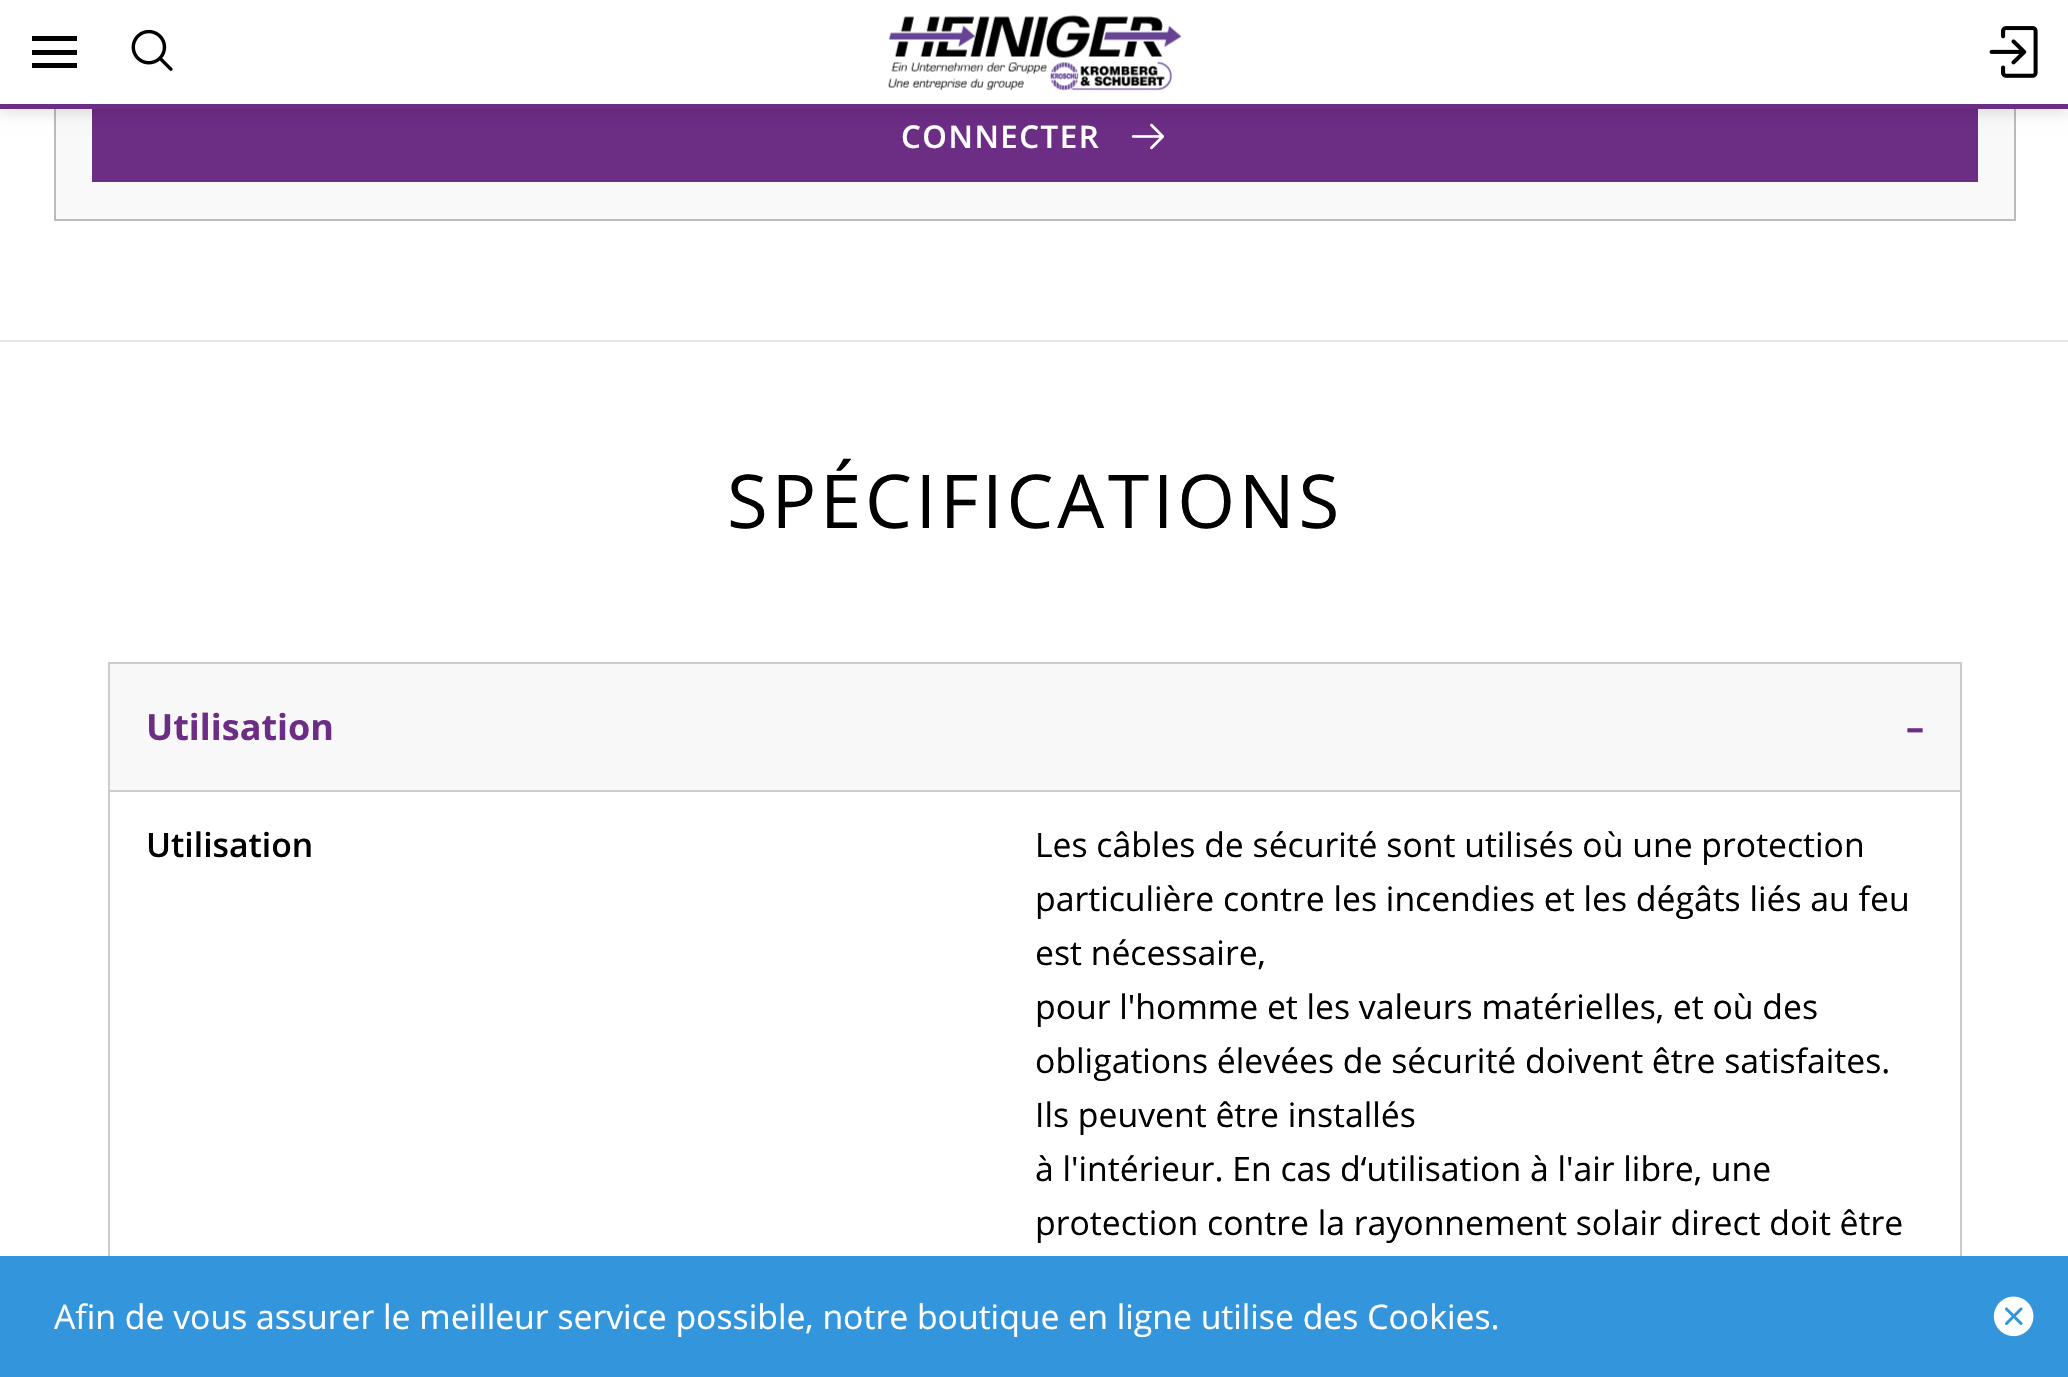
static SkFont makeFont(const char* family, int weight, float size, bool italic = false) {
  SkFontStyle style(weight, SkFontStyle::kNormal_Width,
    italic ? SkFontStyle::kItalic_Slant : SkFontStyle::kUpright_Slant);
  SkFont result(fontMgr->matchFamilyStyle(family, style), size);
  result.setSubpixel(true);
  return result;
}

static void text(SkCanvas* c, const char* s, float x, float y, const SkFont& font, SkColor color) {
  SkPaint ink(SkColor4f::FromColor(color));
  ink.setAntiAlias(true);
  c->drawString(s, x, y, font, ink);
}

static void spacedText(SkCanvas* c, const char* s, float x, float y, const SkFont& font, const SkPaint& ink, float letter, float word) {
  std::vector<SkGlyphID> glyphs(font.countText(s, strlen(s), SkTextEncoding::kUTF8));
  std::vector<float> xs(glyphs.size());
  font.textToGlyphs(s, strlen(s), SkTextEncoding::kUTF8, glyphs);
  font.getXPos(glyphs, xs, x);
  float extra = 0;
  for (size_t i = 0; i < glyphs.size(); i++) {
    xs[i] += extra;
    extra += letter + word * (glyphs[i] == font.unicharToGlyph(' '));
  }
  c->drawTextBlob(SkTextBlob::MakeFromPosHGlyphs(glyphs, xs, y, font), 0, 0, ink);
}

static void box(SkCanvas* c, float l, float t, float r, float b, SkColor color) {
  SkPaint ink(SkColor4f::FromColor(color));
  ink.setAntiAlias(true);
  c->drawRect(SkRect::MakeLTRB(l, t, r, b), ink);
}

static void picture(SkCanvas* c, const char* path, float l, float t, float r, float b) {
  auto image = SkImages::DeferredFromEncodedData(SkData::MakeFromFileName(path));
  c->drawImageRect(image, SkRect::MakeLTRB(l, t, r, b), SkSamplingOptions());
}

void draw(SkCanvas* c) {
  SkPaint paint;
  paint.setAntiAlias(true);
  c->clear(0xffffffff);
  box(c, 56, 109, 2014, 219, 0xfff9f9f9);
  paint.setStyle(SkPaint::kStroke_Style);
  paint.setStrokeWidth(2);
  paint.setColor(0xffbbbbbb);
  c->drawRect(SkRect::MakeLTRB(55, -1, 2015, 220), paint);
  box(c, 92, 109, 1978, 182, 0xff6c2d85);
  picture(c, "img_04.png", 1131, 123, 1164, 150);
  paint.setStyle(SkPaint::kFill_Style);
  paint.setColor(0x1f010101);
  paint.setMaskFilter(SkMaskFilter::MakeBlur(kNormal_SkBlurStyle, 7));
  c->drawRect(SkRect::MakeLTRB(0, 5, 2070, 113), paint);
  paint.setMaskFilter(nullptr);
  box(c, 0, 0, 2068, 104, 0xffffffff);
  box(c, 0, 104, 2068, 109, 0xff6c2d85);
  box(c, 32, 36, 77, 41, 0xff000000);
  box(c, 32, 50, 77, 55, 0xff000000);
  box(c, 32, 63, 77, 68, 0xff000000);
  picture(c, "img_01.png", 131, 29, 173, 71);
  picture(c, "img_02.png", 888, 15, 1182, 91);
  picture(c, "img_03.png", 1989, 26, 2038, 78);
  SkFont face1 = makeFont("Open Sans", 600, 31.25f);
  paint.setColor(0xffffffff);
  spacedText(c, "CONNECTER", 901, 148, face1, paint, 1.5f, 0);
  box(c, 0, 340, 2068, 342, 0xffe5e5e5);
  SkFont face2 = makeFont("Open Sans", 400, 74.25f);
  paint.setColor(0xff000000);
  spacedText(c, "SPÉCIFICATIONS", 727, 528, face2, paint, 3.75f, 0);
  box(c, 110, 664, 1960, 790, 0xfff8f8f8);
  box(c, 108, 662, 1962, 664, 0xffcccccc);
  box(c, 1960, 662, 1962, 790, 0xffcccccc);
  box(c, 108, 662, 110, 790, 0xffcccccc);
  SkFont face3 = makeFont("Open Sans", 700, 36);
  text(c, "Utilisation", 146, 740, face3, 0xff6c2d85);
  text(c, "–", 1906, 740, face3, 0xff6c2d85);
  box(c, 108, 790, 1962, 792, 0xffcccccc);
  box(c, 1960, 790, 1962, 1256, 0xffcccccc);
  box(c, 108, 790, 110, 1256, 0xffcccccc);
  SkFont face4 = makeFont("Open Sans", 600, 33.75f);
  text(c, "Utilisation", 146, 857, face4, 0xff000000);
  SkFont face5 = makeFont("Open Sans", 400, 33.75f);
  text(c, "Les câbles de sécurité sont utilisés où une protection", 1035, 857, face5, 0xff000000);
  text(c, "particulière contre les incendies et les dégâts liés au feu", 1035, 911, face5, 0xff000000);
  text(c, "est nécessaire,", 1035, 965, face5, 0xff000000);
  text(c, "pour l'homme et les valeurs matérielles, et où des", 1035, 1019, face5, 0xff000000);
  text(c, "obligations élevées de sécurité doivent être satisfaites.", 1035, 1073, face5, 0xff000000);
  text(c, "Ils peuvent être installés", 1035, 1127, face5, 0xff000000);
  text(c, "à l'intérieur. En cas d‘utilisation à l'air libre, une", 1035, 1181, face5, 0xff000000);
  text(c, "protection contre la rayonnement solair direct doit être", 1035, 1235, face5, 0xff000000);
  box(c, 0, 1256, 2068, 1377, 0xff3396dc);
  text(c, "Afin de vous assurer le meilleur service possible, notre boutique en ligne utilise des Cookies.", 54, 1329, face5, 0xffffffff);
  picture(c, "img_05.png", 1993, 1296, 2034, 1337);
}
